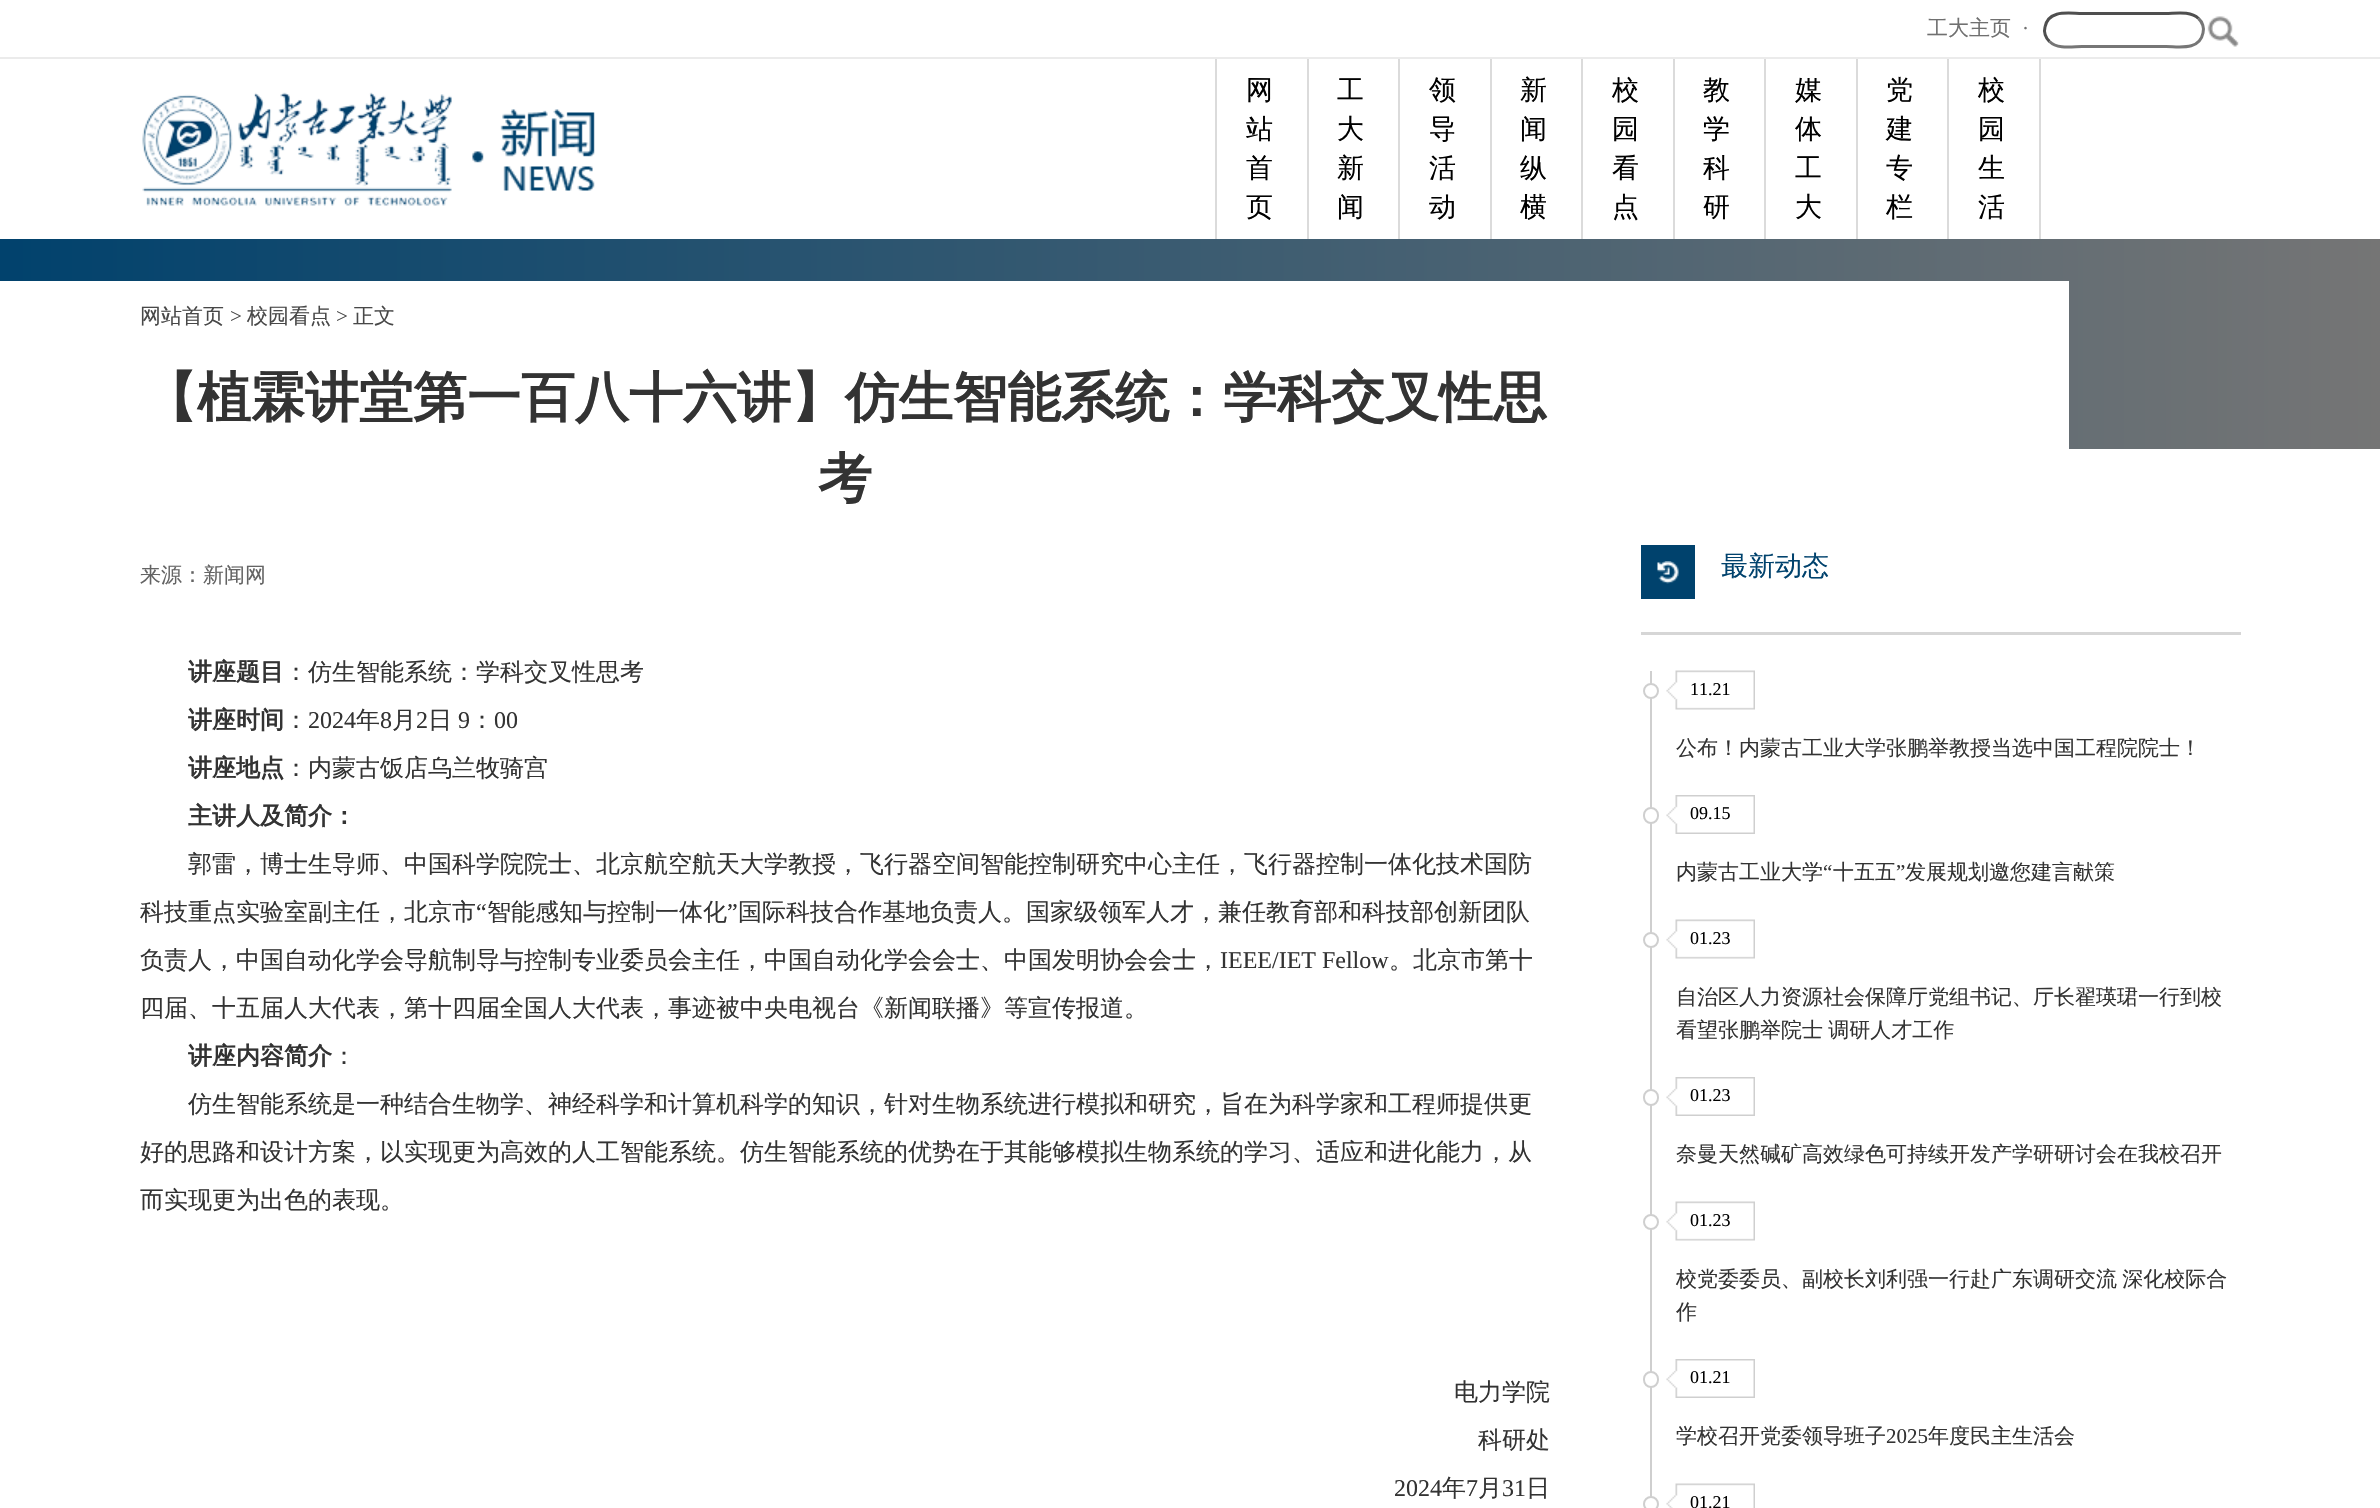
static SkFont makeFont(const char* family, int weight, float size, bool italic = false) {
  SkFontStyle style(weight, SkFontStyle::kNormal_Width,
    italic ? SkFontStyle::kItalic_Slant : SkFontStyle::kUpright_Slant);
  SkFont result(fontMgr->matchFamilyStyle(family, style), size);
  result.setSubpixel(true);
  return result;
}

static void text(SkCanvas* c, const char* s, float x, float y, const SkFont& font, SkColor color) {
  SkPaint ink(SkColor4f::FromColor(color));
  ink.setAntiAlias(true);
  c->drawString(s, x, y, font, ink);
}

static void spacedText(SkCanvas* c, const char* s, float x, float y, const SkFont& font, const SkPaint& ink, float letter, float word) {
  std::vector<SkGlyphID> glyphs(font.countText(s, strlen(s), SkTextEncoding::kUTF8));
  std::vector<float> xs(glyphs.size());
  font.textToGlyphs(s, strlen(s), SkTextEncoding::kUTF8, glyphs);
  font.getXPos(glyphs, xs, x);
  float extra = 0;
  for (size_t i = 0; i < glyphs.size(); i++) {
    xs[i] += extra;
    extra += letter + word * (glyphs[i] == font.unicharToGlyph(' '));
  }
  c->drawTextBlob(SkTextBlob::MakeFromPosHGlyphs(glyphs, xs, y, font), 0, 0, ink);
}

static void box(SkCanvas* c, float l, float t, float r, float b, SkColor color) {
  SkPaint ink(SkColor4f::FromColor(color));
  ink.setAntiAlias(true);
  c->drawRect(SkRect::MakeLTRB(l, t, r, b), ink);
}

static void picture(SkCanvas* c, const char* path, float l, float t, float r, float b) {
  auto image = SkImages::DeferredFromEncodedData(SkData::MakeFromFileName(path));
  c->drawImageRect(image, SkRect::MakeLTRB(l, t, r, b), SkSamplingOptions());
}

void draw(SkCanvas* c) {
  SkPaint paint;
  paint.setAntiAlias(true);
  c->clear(0xffffffff);
  box(c, 0, 57, 2380, 59, 0xffebebeb);
  SkFont face1 = makeFont("WenQuanYi Zen Hei", 500, 21);
  text(c, "工大主页", 1927, 35, face1, 0xff707070);
  SkFont face2 = makeFont("Liberation Serif", 400, 21);
  text(c, "·", 2022, 35, face2, 0xff707070);
  paint.setStyle(SkPaint::kStroke_Style);
  paint.setStrokeWidth(3);
  paint.setColor(0xff767676);
  c->drawPath(SkPathBuilder().moveTo(2198.5f, 18.5f).cubicTo(2202.5f, 22, 2204.5f, 28, 2203, 33).cubicTo(2199.5f, 51, 2178.5f, 46.5f, 2166, 46.5f).lineTo(2082, 46.5f).cubicTo(2073, 46.5f, 2057.5f, 49.5f, 2049.5f, 41.5f).detach(), paint);
  paint.setColor(0xff4f4f4f);
  c->drawPath(SkPathBuilder().moveTo(2049.5f, 41.5f).cubicTo(2045.5f, 38, 2043.5f, 32, 2045, 27).cubicTo(2048.5f, 9, 2069.5f, 13.5f, 2082, 13.5f).lineTo(2166, 13.5f).cubicTo(2175, 13.5f, 2190.5f, 10.5f, 2198.5f, 18.5f).detach(), paint);
  picture(c, "img_01.png", 2207, 16, 2239, 47);
  picture(c, "img_02.png", 142, 92, 595, 206);
  box(c, 2039, 59, 2041, 239, 0xffdbdbdb);
  box(c, 1215, 59, 1217, 239, 0xffdbdbdb);
  SkFont face3 = makeFont("WenQuanYi Zen Hei", 500, 27);
  text(c, "网", 1246, 99, face3, 0xff000000);
  text(c, "站", 1246, 138, face3, 0xff000000);
  text(c, "首", 1246, 177, face3, 0xff000000);
  text(c, "页", 1246, 216, face3, 0xff000000);
  box(c, 1307, 59, 1309, 239, 0xffdbdbdb);
  text(c, "工", 1337, 99, face3, 0xff000000);
  text(c, "大", 1337, 138, face3, 0xff000000);
  text(c, "新", 1337, 177, face3, 0xff000000);
  text(c, "闻", 1337, 216, face3, 0xff000000);
  box(c, 1398, 59, 1400, 239, 0xffdbdbdb);
  text(c, "领", 1429, 99, face3, 0xff000000);
  text(c, "导", 1429, 138, face3, 0xff000000);
  text(c, "活", 1429, 177, face3, 0xff000000);
  text(c, "动", 1429, 216, face3, 0xff000000);
  box(c, 1490, 59, 1492, 239, 0xffdbdbdb);
  text(c, "新", 1520, 99, face3, 0xff000000);
  text(c, "闻", 1520, 138, face3, 0xff000000);
  text(c, "纵", 1520, 177, face3, 0xff000000);
  text(c, "横", 1520, 216, face3, 0xff000000);
  box(c, 1581, 59, 1583, 239, 0xffdbdbdb);
  text(c, "校", 1612, 99, face3, 0xff000000);
  text(c, "园", 1612, 138, face3, 0xff000000);
  text(c, "看", 1612, 177, face3, 0xff000000);
  text(c, "点", 1612, 216, face3, 0xff000000);
  box(c, 1673, 59, 1675, 239, 0xffdbdbdb);
  text(c, "教", 1703, 99, face3, 0xff000000);
  text(c, "学", 1703, 138, face3, 0xff000000);
  text(c, "科", 1703, 177, face3, 0xff000000);
  text(c, "研", 1703, 216, face3, 0xff000000);
  box(c, 1764, 59, 1766, 239, 0xffdbdbdb);
  text(c, "媒", 1795, 99, face3, 0xff000000);
  text(c, "体", 1795, 138, face3, 0xff000000);
  text(c, "工", 1795, 177, face3, 0xff000000);
  text(c, "大", 1795, 216, face3, 0xff000000);
  box(c, 1856, 59, 1858, 239, 0xffdbdbdb);
  text(c, "党", 1886, 99, face3, 0xff000000);
  text(c, "建", 1886, 138, face3, 0xff000000);
  text(c, "专", 1886, 177, face3, 0xff000000);
  text(c, "栏", 1886, 216, face3, 0xff000000);
  box(c, 1947, 59, 1949, 239, 0xffdbdbdb);
  text(c, "校", 1978, 99, face3, 0xff000000);
  text(c, "园", 1978, 138, face3, 0xff000000);
  text(c, "生", 1978, 177, face3, 0xff000000);
  text(c, "活", 1978, 216, face3, 0xff000000);
  paint.setStyle(SkPaint::kFill_Style);
  {
    const SkColor colors[] = {0xff01426d, 0xff757575};
    const float stops[] = {0, 1};
    const SkPoint ends[] = {{0, 344}, {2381, 343}};
    paint.setShader(SkGradientShader::MakeLinear(ends, colors, stops, 2, SkTileMode::kClamp));
    paint.setAlpha(255);
  }
  c->drawRect(SkRect::MakeLTRB(0, 239, 2380, 449), paint);
  box(c, 0, 281, 2069, 449, 0xffffffff);
  text(c, "网站首页", 140, 323, face1, 0xff484848);
  text(c, ">", 230, 323, face2, 0xff484848);
  text(c, "校园看点", 247, 323, face1, 0xff484848);
  text(c, ">", 336, 323, face2, 0xff484848);
  text(c, "正文", 353, 323, face1, 0xff484848);
  SkFont face4 = makeFont("WenQuanYi Zen Hei", 700, 54);
  text(c, "【植霖讲堂第一百八十六讲】仿生智能系统：学科交叉性思", 143, 416, face4, 0xff333333);
  text(c, "考", 818, 497, face4, 0xff333333);
  text(c, "来源：新闻网", 140, 582, face1, 0xff646464);
  SkFont face5 = makeFont("WenQuanYi Zen Hei", 700, 24);
  text(c, "讲座题目", 188, 680, face5, 0xff333333);
  SkFont face6 = makeFont("WenQuanYi Zen Hei", 500, 24);
  text(c, "：仿生智能系统：学科交叉性思考", 284, 680, face6, 0xff333333);
  text(c, "讲座时间", 188, 728, face5, 0xff333333);
  text(c, "：", 284, 728, face6, 0xff333333);
  SkFont face7 = makeFont("Liberation Serif", 400, 24);
  text(c, "2024", 308, 728, face7, 0xff333333);
  text(c, "年", 356, 728, face6, 0xff333333);
  text(c, "8", 380, 728, face7, 0xff333333);
  text(c, "月", 392, 728, face6, 0xff333333);
  text(c, "2", 416, 728, face7, 0xff333333);
  text(c, "日", 428, 728, face6, 0xff333333);
  text(c, "9", 458, 728, face7, 0xff333333);
  text(c, "：", 470, 728, face6, 0xff333333);
  text(c, "00", 494, 728, face7, 0xff333333);
  text(c, "讲座地点", 188, 776, face5, 0xff333333);
  text(c, "：内蒙古饭店乌兰牧骑宫", 284, 776, face6, 0xff333333);
  text(c, "主讲人及简介：", 188, 824, face5, 0xff333333);
  text(c, "郭雷，博士生导师、中国科学院院士、北京航空航天大学教授，飞行器空间智能控制研究中心主任，飞行器控制一体化技术国防", 188, 872, face6, 0xff333333);
  text(c, "科技重点实验室副主任，北京市", 140, 920, face6, 0xff333333);
  text(c, "“", 476, 920, face7, 0xff333333);
  text(c, "智能感知与控制一体化", 487, 920, face6, 0xff333333);
  text(c, "”", 727, 920, face7, 0xff333333);
  text(c, "国际科技合作基地负责人。国家级领军人才，兼任教育部和科技部创新团队", 738, 920, face6, 0xff333333);
  text(c, "负责人，中国自动化学会导航制导与控制专业委员会主任，中国自动化学会会士、中国发明协会会士，", 140, 968, face6, 0xff333333);
  text(c, "IEEE/IET Fellow", 1220, 968, face7, 0xff333333);
  text(c, "。北京市第十", 1389, 968, face6, 0xff333333);
  text(c, "四届、十五届人大代表，第十四届全国人大代表，事迹被中央电视台《新闻联播》等宣传报道。", 140, 1016, face6, 0xff333333);
  text(c, "讲座内容简介", 188, 1064, face5, 0xff333333);
  text(c, "：", 332, 1064, face6, 0xff333333);
  text(c, "仿生智能系统是一种结合生物学、神经科学和计算机科学的知识，针对生物系统进行模拟和研究，旨在为科学家和工程师提供更", 188, 1112, face6, 0xff333333);
  text(c, "好的思路和设计方案，以实现更为高效的人工智能系统。仿生智能系统的优势在于其能够模拟生物系统的学习、适应和进化能力，从", 140, 1160, face6, 0xff333333);
  text(c, "而实现更为出色的表现。", 140, 1208, face6, 0xff333333);
  text(c, "电力学院", 1454, 1400, face6, 0xff333333);
  text(c, "科研处", 1478, 1448, face6, 0xff333333);
  text(c, "2024", 1394, 1496, face7, 0xff333333);
  text(c, "年", 1442, 1496, face6, 0xff333333);
  text(c, "7", 1466, 1496, face7, 0xff333333);
  text(c, "月", 1478, 1496, face6, 0xff333333);
  text(c, "31", 1502, 1496, face7, 0xff333333);
  text(c, "日", 1526, 1496, face6, 0xff333333);
  box(c, 1641, 632, 2241, 635, 0xffd6d6d6);
  box(c, 1641, 545, 1695, 599, 0xff00426d);
  picture(c, "img_03.png", 1657, 561, 1679, 584);
  text(c, "最新动态", 1721, 575, face3, 0xff00426d);
  box(c, 1650, 671, 1652, 1497, 0xffcfcfcf);
  paint.setShader(nullptr);
  paint.setColor(0xffffffff);
  c->drawCircle(1651, 691, 7, paint);
  paint.setStyle(SkPaint::kStroke_Style);
  paint.setStrokeWidth(2);
  paint.setColor(0xffcfcfcf);
  c->drawCircle(1651, 691, 7, paint);
  picture(c, "img_04.png", 1666, 670, 1755, 710);
  SkFont face8 = makeFont("Liberation Serif", 400, 18);
  text(c, "11.21", 1690, 695, face8, 0xff000000);
  text(c, "公布！内蒙古工业大学张鹏举教授当选中国工程院院士！", 1676, 755, face1, 0xff333333);
  paint.setStyle(SkPaint::kFill_Style);
  paint.setColor(0xffffffff);
  c->drawRoundRect(SkRect::MakeLTRB(1644, 808, 1658, 823), 7, 7, paint);
  paint.setStyle(SkPaint::kStroke_Style);
  paint.setColor(0xffcfcfcf);
  c->drawRoundRect(SkRect::MakeLTRB(1644, 808, 1658, 823), 7, 7, paint);
  picture(c, "img_05.png", 1666, 795, 1755, 834);
  text(c, "09.15", 1690, 819, face8, 0xff000000);
  text(c, "内蒙古工业大学", 1676, 879, face1, 0xff333333);
  text(c, "“", 1823, 879, face2, 0xff333333);
  text(c, "十五五", 1833, 879, face1, 0xff333333);
  text(c, "”", 1896, 879, face2, 0xff333333);
  text(c, "发展规划邀您建言献策", 1905, 879, face1, 0xff333333);
  paint.setStyle(SkPaint::kFill_Style);
  paint.setColor(0xffffffff);
  c->drawCircle(1651, 940, 7, paint);
  paint.setStyle(SkPaint::kStroke_Style);
  paint.setColor(0xffcfcfcf);
  c->drawCircle(1651, 940, 7, paint);
  picture(c, "img_04.png", 1666, 919, 1755, 959);
  text(c, "01.23", 1690, 944, face8, 0xff000000);
  text(c, "自治区人力资源社会保障厅党组书记、厅长翟瑛珺一行到校", 1676, 1004, face1, 0xff333333);
  paint.setStyle(SkPaint::kFill_Style);
  paint.setColor(0xff333333);
  spacedText(c, "看望张鹏举院士 调研人才工作", 1676, 1037, face1, paint, 0, -1);
  paint.setColor(0xffffffff);
  c->drawRoundRect(SkRect::MakeLTRB(1644, 1090, 1658, 1105), 7, 7, paint);
  paint.setStyle(SkPaint::kStroke_Style);
  paint.setColor(0xffcfcfcf);
  c->drawRoundRect(SkRect::MakeLTRB(1644, 1090, 1658, 1105), 7, 7, paint);
  picture(c, "img_05.png", 1666, 1077, 1755, 1116);
  text(c, "01.23", 1690, 1101, face8, 0xff000000);
  text(c, "奈曼天然碱矿高效绿色可持续开发产学研研讨会在我校召开", 1676, 1161, face1, 0xff333333);
  paint.setStyle(SkPaint::kFill_Style);
  paint.setColor(0xffffffff);
  c->drawCircle(1651, 1222, 7, paint);
  paint.setStyle(SkPaint::kStroke_Style);
  paint.setColor(0xffcfcfcf);
  c->drawCircle(1651, 1222, 7, paint);
  picture(c, "img_04.png", 1666, 1201, 1755, 1241);
  text(c, "01.23", 1690, 1226, face8, 0xff000000);
  paint.setStyle(SkPaint::kFill_Style);
  paint.setColor(0xff333333);
  spacedText(c, "校党委委员、副校长刘利强一行赴广东调研交流 深化校际合", 1676, 1286, face1, paint, 0, -1);
  text(c, "作", 1676, 1319, face1, 0xff333333);
  paint.setColor(0xffffffff);
  c->drawRoundRect(SkRect::MakeLTRB(1644, 1372, 1658, 1387), 7, 7, paint);
  paint.setStyle(SkPaint::kStroke_Style);
  paint.setColor(0xffcfcfcf);
  c->drawRoundRect(SkRect::MakeLTRB(1644, 1372, 1658, 1387), 7, 7, paint);
  picture(c, "img_05.png", 1666, 1359, 1755, 1398);
  text(c, "01.21", 1690, 1383, face8, 0xff000000);
  text(c, "学校召开党委领导班子", 1676, 1443, face1, 0xff333333);
  text(c, "2025", 1886, 1443, face2, 0xff333333);
  text(c, "年度民主生活会", 1928, 1443, face1, 0xff333333);
  paint.setStyle(SkPaint::kFill_Style);
  paint.setColor(0xffffffff);
  c->drawCircle(1651, 1504, 7, paint);
  paint.setStyle(SkPaint::kStroke_Style);
  paint.setColor(0xffcfcfcf);
  c->drawCircle(1651, 1504, 7, paint);
  picture(c, "img_06.png", 1666, 1483, 1755, 1508);
  text(c, "01.21", 1690, 1508, face8, 0xff000000);
}
